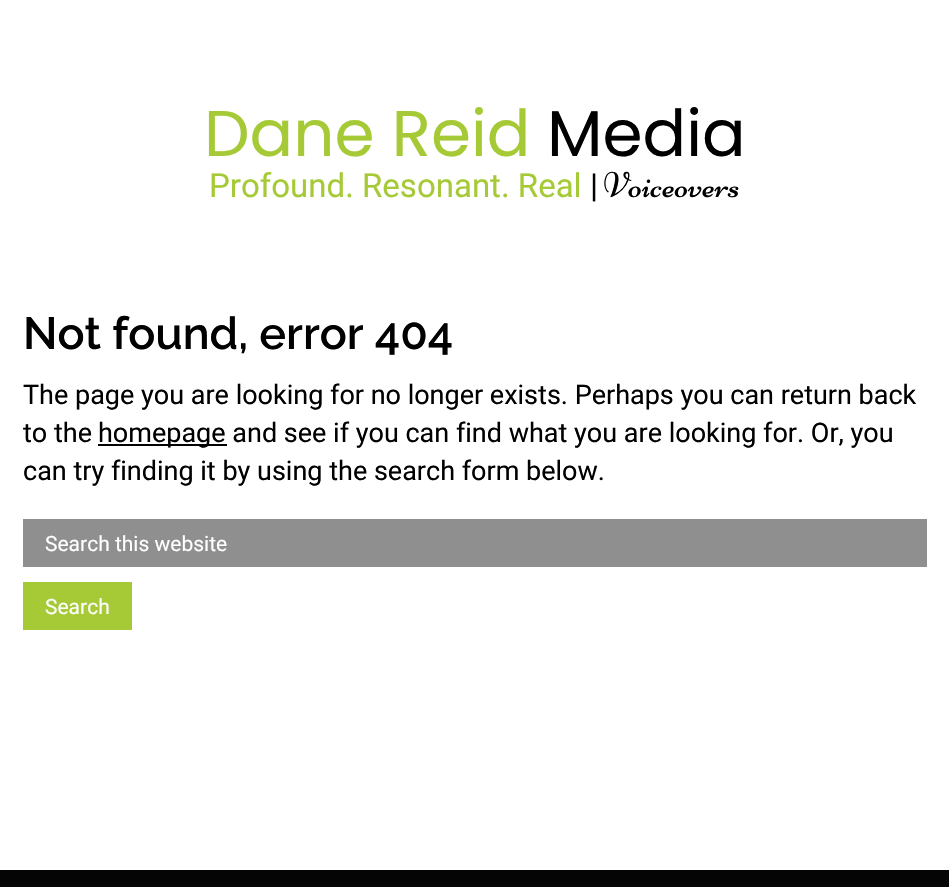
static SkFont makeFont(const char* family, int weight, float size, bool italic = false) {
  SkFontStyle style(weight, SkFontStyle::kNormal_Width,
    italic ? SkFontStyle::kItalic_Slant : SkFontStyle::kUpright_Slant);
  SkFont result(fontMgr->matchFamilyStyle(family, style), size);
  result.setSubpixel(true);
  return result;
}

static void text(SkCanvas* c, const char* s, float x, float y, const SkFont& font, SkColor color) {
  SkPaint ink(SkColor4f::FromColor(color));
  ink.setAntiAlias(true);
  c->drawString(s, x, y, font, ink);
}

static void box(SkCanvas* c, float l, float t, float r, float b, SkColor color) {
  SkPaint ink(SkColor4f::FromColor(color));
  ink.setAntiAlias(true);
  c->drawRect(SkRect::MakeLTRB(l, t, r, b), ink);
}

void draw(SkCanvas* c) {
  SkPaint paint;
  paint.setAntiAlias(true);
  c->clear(0xffffffff);
  SkFont face1 = makeFont("Poppins", 400, 64.5f);
  text(c, "Dane Reid", 204, 156, face1, 0xffa6ca36);
  text(c, "Media", 547, 156, face1, 0xff000000);
  SkFont face2 = makeFont("Roboto", 400, 33);
  text(c, "Profound. Resonant. Real", 209, 197, face2, 0xffa6ca36);
  text(c, "|", 590, 197, face2, 0xff000000);
  SkFont face3 = makeFont("Niconne", 400, 36);
  text(c, "Voiceovers", 604, 197, face3, 0xff000000);
  SkFont face4 = makeFont("Raleway", 600, 45);
  text(c, "Not found, error 404", 23, 349, face4, 0xff000000);
  SkFont face5 = makeFont("Roboto", 400, 27);
  text(c, "The page you are looking for no longer exists. Perhaps you can return back", 23, 404, face5, 0xff000000);
  text(c, "to the", 23, 442, face5, 0xff000000);
  box(c, 98, 444, 227, 446, 0xff000000);
  text(c, "homepage and see if you can find what you are looking for. Or, you", 98, 442, face5, 0xff000000);
  text(c, "can try finding it by using the search form below.", 23, 480, face5, 0xff000000);
  box(c, 23, 519, 927, 567, 0xff8f8f8f);
  SkFont face6 = makeFont("Roboto", 400, 21);
  text(c, "Search this website", 45, 551, face6, 0xffffffff);
  box(c, 23, 582, 132, 630, 0xffa6ca36);
  text(c, "Search", 45, 614, face6, 0xffffffff);
  box(c, 0, 870, 949, 887, 0xff050505);
}
